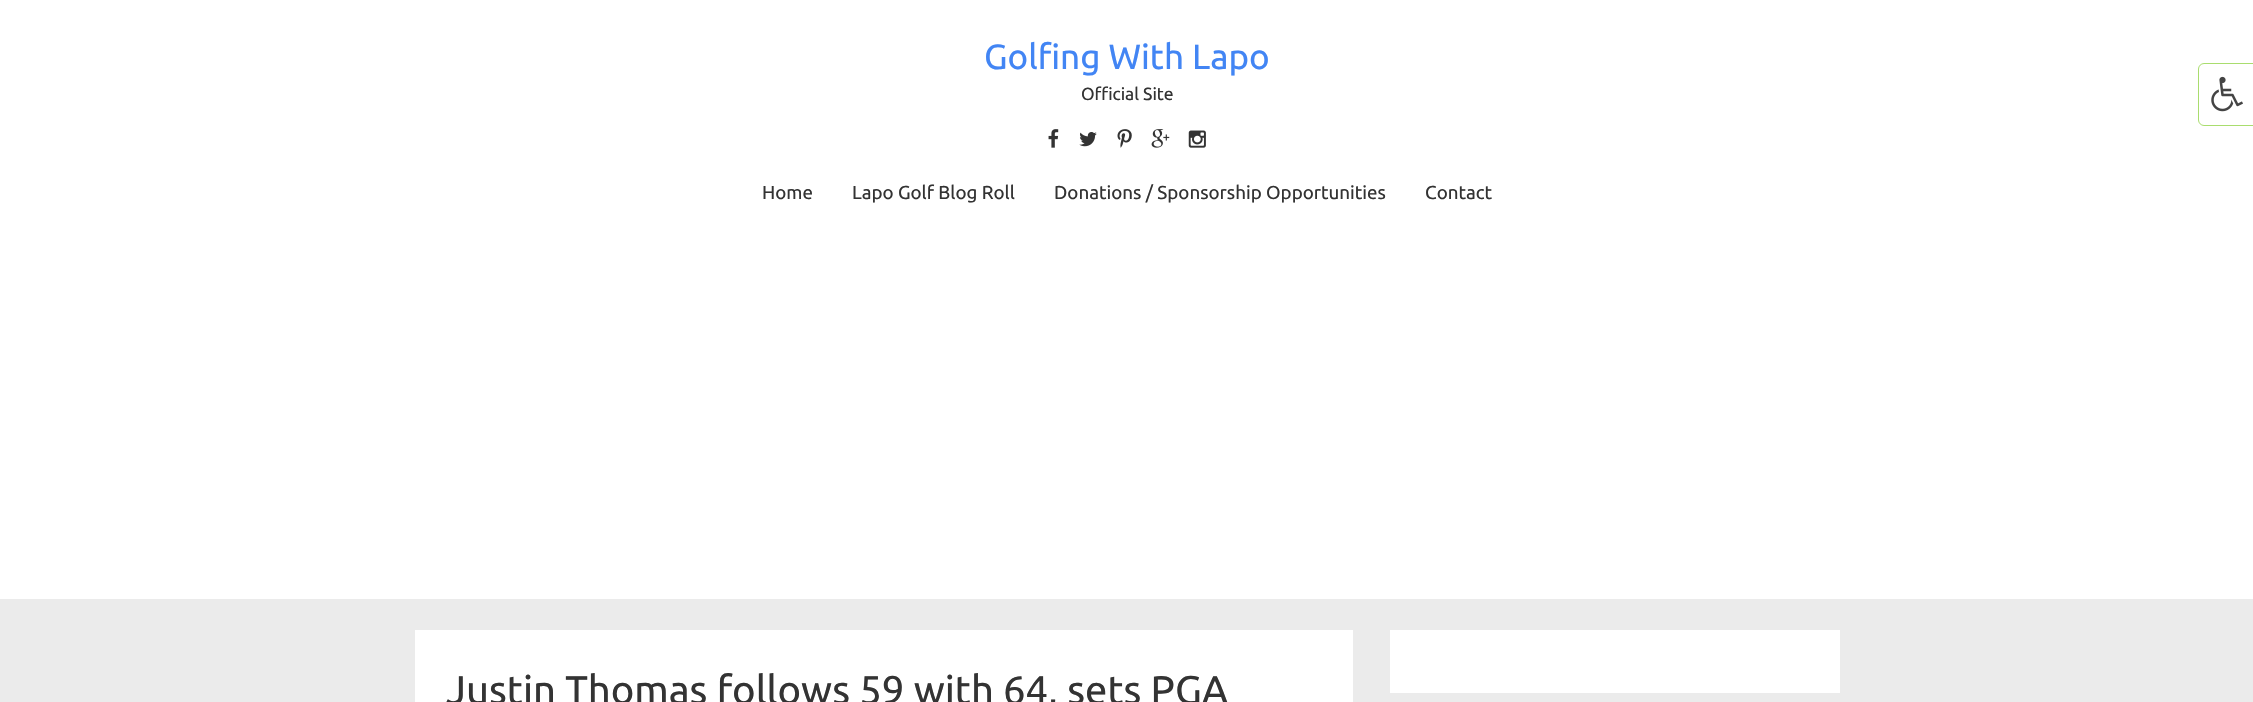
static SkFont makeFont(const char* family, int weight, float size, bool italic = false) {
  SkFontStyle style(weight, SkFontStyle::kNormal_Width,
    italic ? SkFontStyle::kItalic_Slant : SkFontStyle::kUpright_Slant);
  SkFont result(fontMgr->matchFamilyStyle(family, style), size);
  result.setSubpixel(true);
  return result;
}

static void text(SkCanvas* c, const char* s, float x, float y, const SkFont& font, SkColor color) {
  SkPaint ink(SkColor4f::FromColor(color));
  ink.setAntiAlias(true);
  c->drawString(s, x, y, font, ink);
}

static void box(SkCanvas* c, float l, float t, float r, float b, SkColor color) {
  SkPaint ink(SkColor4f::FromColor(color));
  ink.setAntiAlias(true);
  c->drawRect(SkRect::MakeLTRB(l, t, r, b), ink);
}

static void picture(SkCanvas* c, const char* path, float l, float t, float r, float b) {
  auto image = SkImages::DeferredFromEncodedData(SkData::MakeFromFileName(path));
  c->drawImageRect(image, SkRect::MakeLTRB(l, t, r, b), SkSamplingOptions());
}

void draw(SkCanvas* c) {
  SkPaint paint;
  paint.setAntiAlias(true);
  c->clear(0xffebebeb);
  box(c, 0, 0, 2253, 599, 0xffffffff);
  SkFont face1 = makeFont("Ubuntu", 400, 35);
  text(c, "Golfing With Lapo", 984, 69, face1, 0xff4285f4);
  SkFont face2 = makeFont("Ubuntu", 400, 17.5f);
  text(c, "Official Site", 1081, 100, face2, 0xff333333);
  picture(c, "img_01.png", 1048, 129, 1059, 148);
  picture(c, "img_02.png", 1079, 132, 1097, 147);
  picture(c, "img_03.png", 1117, 129, 1132, 148);
  picture(c, "img_04.png", 1151, 129, 1170, 148);
  picture(c, "img_05.png", 1188, 130, 1206, 148);
  SkFont face3 = makeFont("Ubuntu", 400, 18.75f);
  text(c, "Home", 762, 199, face3, 0xff333333);
  text(c, "Lapo Golf Blog Roll", 852, 199, face3, 0xff333333);
  text(c, "Donations / Sponsorship Opportunities", 1054, 199, face3, 0xff333333);
  text(c, "Contact", 1425, 199, face3, 0xff333333);
  paint.setStyle(SkPaint::kStroke_Style);
  paint.setStrokeWidth(1);
  paint.setColor(0xffa9dd6e);
  c->drawPath(SkPathBuilder().moveTo(2204, 63.5f).lineTo(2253.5f, 63.5f).lineTo(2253.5f, 125.5f).lineTo(2204, 125.5f).cubicTo(2201, 125.5f, 2198.5f, 123, 2198.5f, 120).lineTo(2198.5f, 69).cubicTo(2198.5f, 66, 2201, 63.5f, 2204, 63.5f).close().detach(), paint);
  picture(c, "img_06.png", 2211, 76, 2243, 112);
  box(c, 415, 630, 1353, 702, 0xffffffff);
  SkFont face4 = makeFont("Ubuntu", 400, 40);
  text(c, "Justin Thomas follows 59 with 64, sets PGA", 446, 704, face4, 0xff333333);
  box(c, 1390, 630, 1840, 693, 0xffffffff);
}
